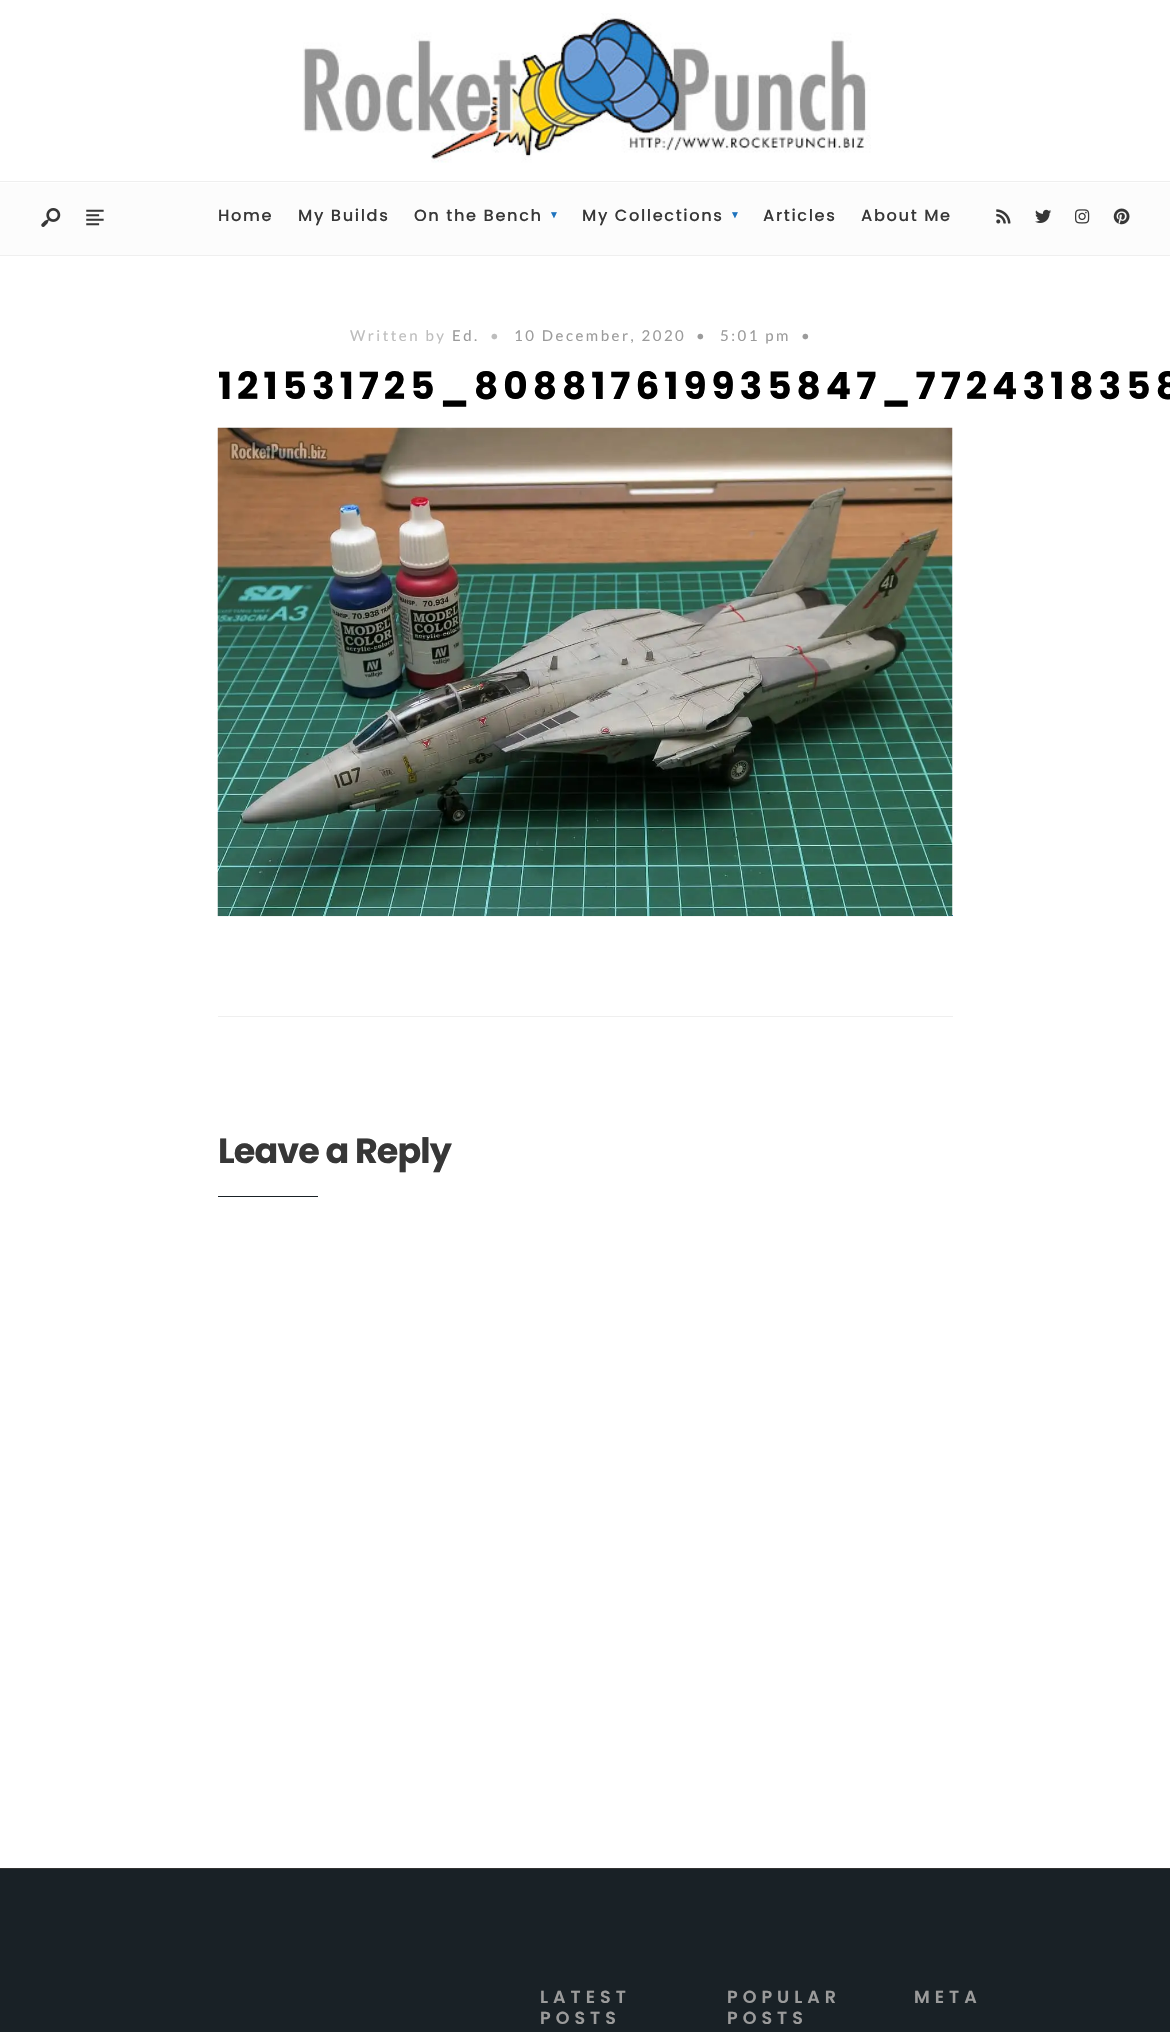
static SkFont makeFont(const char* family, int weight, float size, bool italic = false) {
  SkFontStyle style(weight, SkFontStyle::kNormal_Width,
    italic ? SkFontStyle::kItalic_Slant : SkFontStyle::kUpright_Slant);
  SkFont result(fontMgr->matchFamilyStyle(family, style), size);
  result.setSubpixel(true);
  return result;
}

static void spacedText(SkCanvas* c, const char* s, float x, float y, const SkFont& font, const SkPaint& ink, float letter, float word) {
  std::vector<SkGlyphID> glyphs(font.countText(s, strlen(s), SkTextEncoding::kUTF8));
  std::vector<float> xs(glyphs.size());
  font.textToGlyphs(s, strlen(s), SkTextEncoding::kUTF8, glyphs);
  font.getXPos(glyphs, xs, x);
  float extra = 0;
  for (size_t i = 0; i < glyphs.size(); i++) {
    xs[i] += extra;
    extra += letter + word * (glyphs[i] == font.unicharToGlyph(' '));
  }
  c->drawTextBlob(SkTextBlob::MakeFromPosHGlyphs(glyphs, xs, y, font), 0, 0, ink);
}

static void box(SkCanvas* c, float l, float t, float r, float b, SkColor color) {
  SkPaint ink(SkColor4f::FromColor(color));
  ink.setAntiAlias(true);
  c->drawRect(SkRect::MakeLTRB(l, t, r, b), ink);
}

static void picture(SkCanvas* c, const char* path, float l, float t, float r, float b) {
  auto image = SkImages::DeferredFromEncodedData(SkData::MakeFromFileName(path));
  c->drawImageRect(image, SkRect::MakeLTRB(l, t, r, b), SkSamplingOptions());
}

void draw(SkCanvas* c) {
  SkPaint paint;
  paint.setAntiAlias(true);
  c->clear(0xffffffff);
  box(c, 0, 181, 1170, 182, 0xffefefef);
  picture(c, "img_01.png", 303, 13, 871, 163);
  box(c, 0, 183, 1170, 255, 0xfffcfcfc);
  box(c, 0, 255, 1170, 256, 0xffefefef);
  picture(c, "img_02.png", 41, 208, 61, 227);
  picture(c, "img_03.png", 86, 209, 104, 226);
  SkFont face1 = makeFont("Poppins", 500, 16.25f);
  paint.setColor(0xff373737);
  spacedText(c, "Home", 218, 221, face1, paint, 1.6f, 0);
  spacedText(c, "My Builds", 298, 221, face1, paint, 1.6f, 0);
  spacedText(c, "On the Bench", 414, 221, face1, paint, 1.6f, 0);
  SkFont face2 = makeFont("Liberation Sans", 400, 10);
  paint.setColor(0xff1e73be);
  spacedText(c, "▼", 549, 218, face2, paint, 1.6f, 0);
  paint.setColor(0xff373737);
  spacedText(c, "My Collections", 582, 221, face1, paint, 1.6f, 0);
  paint.setColor(0xff1e73be);
  spacedText(c, "▼", 730, 218, face2, paint, 1.6f, 0);
  paint.setColor(0xff373737);
  spacedText(c, "Articles", 763, 221, face1, paint, 1.6f, 0);
  spacedText(c, "About Me", 861, 221, face1, paint, 1.6f, 0);
  picture(c, "img_04.png", 996, 209, 1011, 224);
  picture(c, "img_05.png", 1035, 209, 1052, 223);
  picture(c, "img_06.png", 1075, 209, 1090, 224);
  picture(c, "img_07.png", 1113, 208, 1130, 225);
  SkFont face3 = makeFont("Lato", 400, 15);
  paint.setColor(0xffbdbdbd);
  spacedText(c, "Written by", 350, 341, face3, paint, 2.5f, 0);
  paint.setColor(0xff9b9b9b);
  spacedText(c, "Ed.", 452, 341, face3, paint, 2.5f, 0);
  paint.setColor(0xffbdbdbd);
  spacedText(c, "•", 490, 341, face3, paint, 2.5f, 0);
  paint.setColor(0xff9b9b9b);
  spacedText(c, "10 December, 2020", 514, 341, face3, paint, 2.5f, 0);
  spacedText(c, "•", 696, 341, face3, paint, 2.5f, 0);
  spacedText(c, "5:01 pm", 720, 341, face3, paint, 2.5f, 0);
  spacedText(c, "•", 801, 341, face3, paint, 2.5f, 0);
  SkFont face4 = makeFont("Poppins", 700, 37.5f);
  paint.setColor(0xff000000);
  spacedText(c, "121531725_808817619935847_7724318358", 218, 399, face4, paint, 5, 0);
  box(c, 952, 915, 953, 916, 0xff1e73be);
  picture(c, "img_08.png", 217, 427, 953, 917);
  box(c, 218, 1016, 953, 1017, 0xffefefef);
  SkFont face5 = makeFont("Poppins", 700, 35);
  paint.setColor(0xff373737);
  spacedText(c, "Leave a Reply", 218, 1163, face5, paint, -0.9f, 0);
  box(c, 218, 1196, 318, 1197, 0xff192126);
  box(c, 0, 1869, 1170, 2032, 0xff192126);
  box(c, 0, 1868, 1170, 1869, 0xff333333);
  SkFont face6 = makeFont("Poppins", 600, 17.5f);
  paint.setColor(0xff9b9b9b);
  spacedText(c, "LATEST", 540, 2003, face6, paint, 5, 0);
  spacedText(c, "POSTS", 540, 2024, face6, paint, 5, 0);
  spacedText(c, "POPULAR", 727, 2003, face6, paint, 5, 0);
  spacedText(c, "POSTS", 727, 2024, face6, paint, 5, 0);
  spacedText(c, "META", 914, 2003, face6, paint, 5, 0);
}
